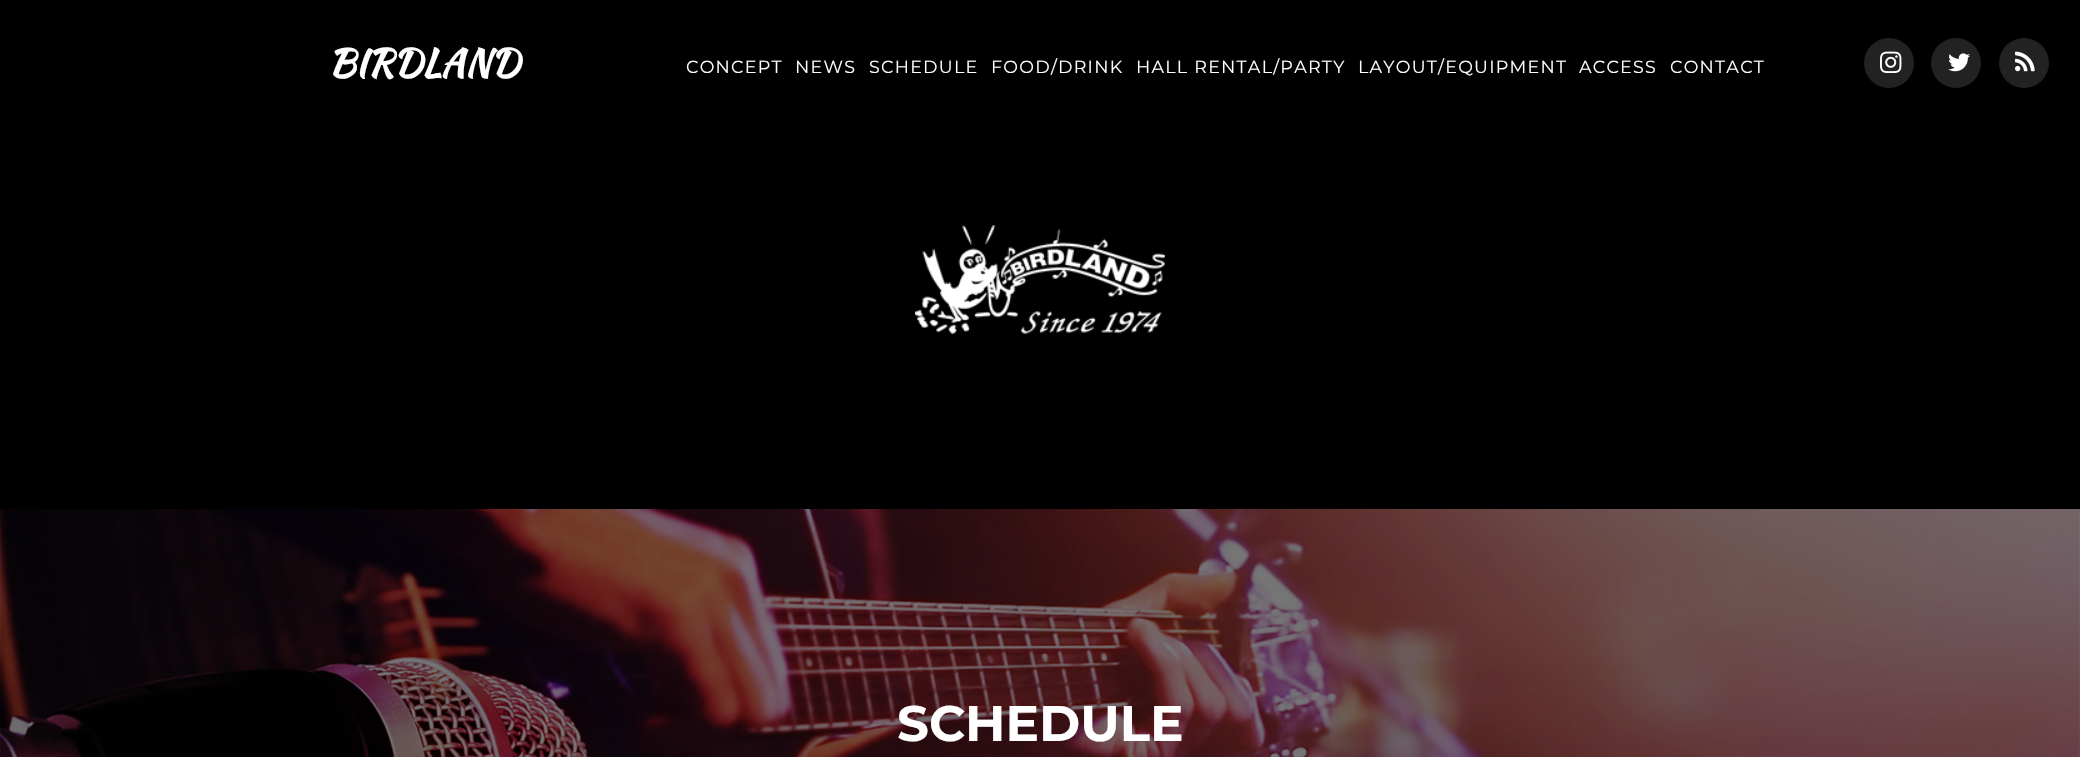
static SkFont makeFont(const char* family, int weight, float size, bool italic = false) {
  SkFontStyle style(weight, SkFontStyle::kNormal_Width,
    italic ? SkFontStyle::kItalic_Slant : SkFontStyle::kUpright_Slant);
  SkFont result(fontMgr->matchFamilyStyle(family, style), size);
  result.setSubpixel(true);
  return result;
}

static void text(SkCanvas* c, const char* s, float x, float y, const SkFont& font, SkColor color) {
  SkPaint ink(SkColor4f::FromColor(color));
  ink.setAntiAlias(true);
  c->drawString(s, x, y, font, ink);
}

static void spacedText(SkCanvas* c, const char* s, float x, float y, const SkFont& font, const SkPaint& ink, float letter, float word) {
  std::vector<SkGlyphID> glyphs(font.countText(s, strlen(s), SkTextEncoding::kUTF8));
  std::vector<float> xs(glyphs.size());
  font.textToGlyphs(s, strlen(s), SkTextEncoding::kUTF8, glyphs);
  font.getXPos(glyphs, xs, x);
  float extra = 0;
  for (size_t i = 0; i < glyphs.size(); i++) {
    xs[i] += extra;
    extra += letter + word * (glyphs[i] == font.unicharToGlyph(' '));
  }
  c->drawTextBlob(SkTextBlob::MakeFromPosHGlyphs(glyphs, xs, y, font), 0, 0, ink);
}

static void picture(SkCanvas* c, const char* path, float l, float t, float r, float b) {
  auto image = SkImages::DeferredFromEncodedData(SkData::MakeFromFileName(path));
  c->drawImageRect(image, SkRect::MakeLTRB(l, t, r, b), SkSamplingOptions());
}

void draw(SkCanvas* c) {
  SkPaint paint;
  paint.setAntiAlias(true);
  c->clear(0xff000000);
  SkFont face1 = makeFont("Kaushan Script", 700, 37.5f);
  text(c, "BIRDLAND", 328, 76, face1, 0xffffffff);
  SkFont face2 = makeFont("Montserrat", 400, 17.5f);
  paint.setColor(0xffffffff);
  spacedText(c, "CONCEPT", 686, 73, face2, paint, 1.25f, 0);
  spacedText(c, "NEWS", 795, 73, face2, paint, 1.25f, 0);
  spacedText(c, "SCHEDULE", 869, 73, face2, paint, 1.25f, 0);
  spacedText(c, "FOOD/DRINK", 991, 73, face2, paint, 1.25f, 0);
  spacedText(c, "HALL RENTAL/PARTY", 1136, 73, face2, paint, 1.25f, 0);
  spacedText(c, "LAYOUT/EQUIPMENT", 1358, 73, face2, paint, 1.25f, 0);
  spacedText(c, "ACCESS", 1579, 73, face2, paint, 1.25f, 0);
  spacedText(c, "CONTACT", 1670, 73, face2, paint, 1.25f, 0);
  paint.setColor(0xff222222);
  c->drawCircle(1889, 63, 25, paint);
  picture(c, "img_01.png", 1880, 51, 1902, 73);
  c->drawCircle(1956, 63, 25, paint);
  picture(c, "img_02.png", 1948, 53, 1970, 72);
  c->drawCircle(2024, 63, 25, paint);
  picture(c, "img_03.png", 2015, 51, 2035, 72);
  picture(c, "img_04.png", 915, 225, 1165, 334);
  picture(c, "img_05.png", 0, 509, 2080, 757);
  SkFont face3 = makeFont("Montserrat", 700, 50);
  text(c, "SCHEDULE", 897, 741, face3, 0xffffffff);
}
